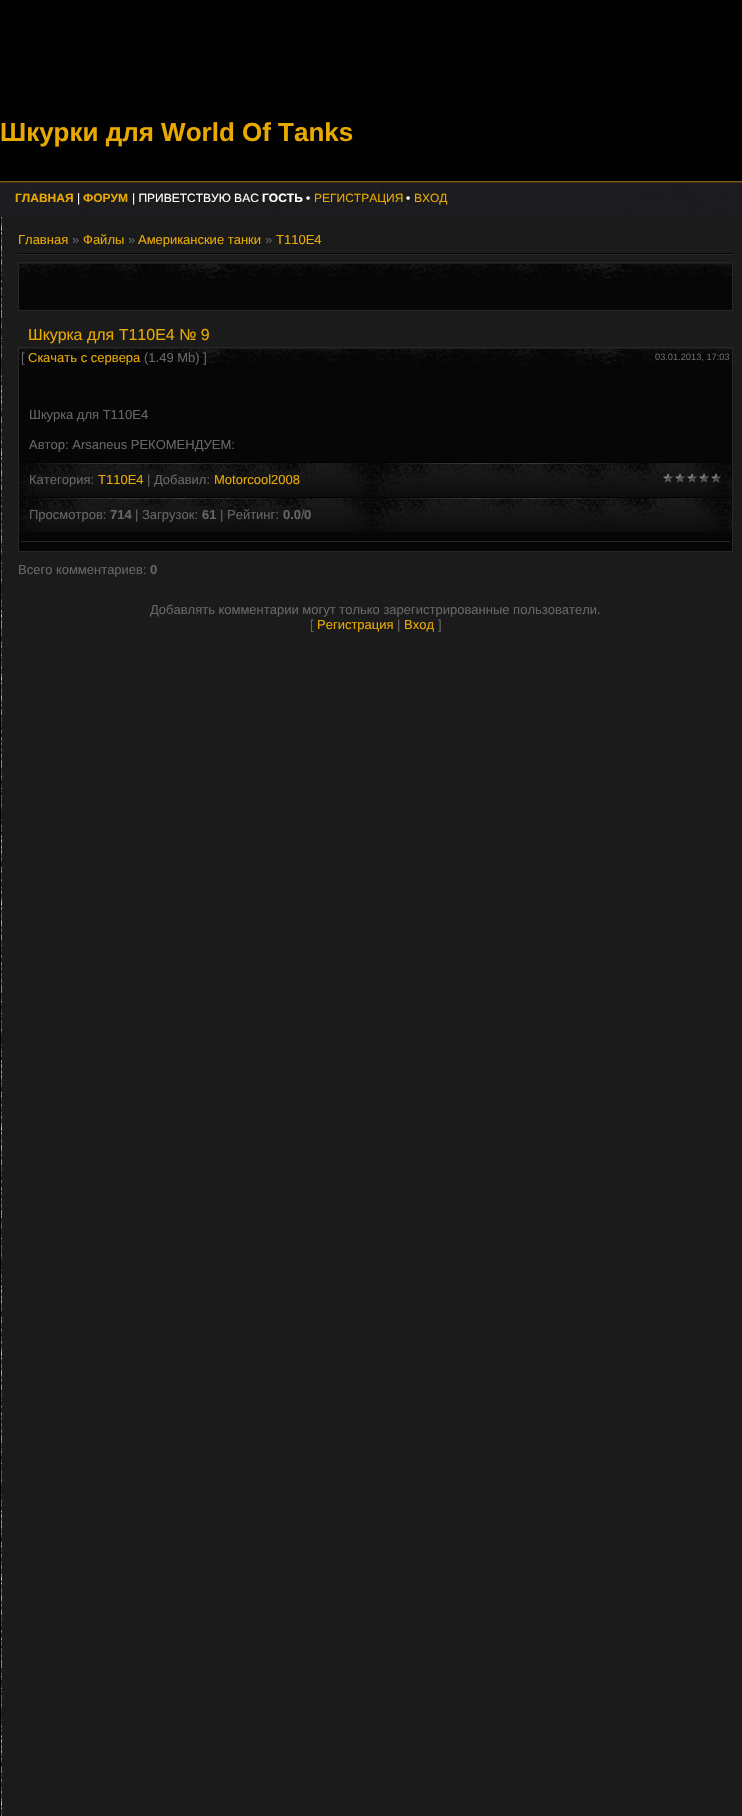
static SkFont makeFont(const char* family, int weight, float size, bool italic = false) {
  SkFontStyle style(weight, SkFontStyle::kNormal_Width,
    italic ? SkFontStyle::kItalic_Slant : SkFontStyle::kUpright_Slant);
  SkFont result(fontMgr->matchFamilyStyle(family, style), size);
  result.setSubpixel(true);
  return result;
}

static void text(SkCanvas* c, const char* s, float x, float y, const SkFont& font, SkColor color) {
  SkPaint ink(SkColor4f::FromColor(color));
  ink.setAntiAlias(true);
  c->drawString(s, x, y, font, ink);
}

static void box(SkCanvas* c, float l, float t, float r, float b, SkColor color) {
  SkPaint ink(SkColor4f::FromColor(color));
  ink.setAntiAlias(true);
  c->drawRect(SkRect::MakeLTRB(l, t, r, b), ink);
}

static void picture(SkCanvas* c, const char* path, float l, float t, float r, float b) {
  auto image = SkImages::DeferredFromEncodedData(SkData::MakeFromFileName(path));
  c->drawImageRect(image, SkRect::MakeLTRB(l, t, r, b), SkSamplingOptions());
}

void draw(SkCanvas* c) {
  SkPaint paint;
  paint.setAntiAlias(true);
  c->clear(0xff010101);
  SkFont face1 = makeFont("Liberation Sans", 700, 26);
  text(c, "Шкурки для World Of Tanks", 0, 141, face1, 0xffe8a902);
  picture(c, "img_01.png", 0, 181, 742, 217);
  SkFont face2 = makeFont("Liberation Sans", 700, 12);
  text(c, "ГЛАВНАЯ", 15, 202, face2, 0xffe8a902);
  SkFont face3 = makeFont("Liberation Sans", 400, 12);
  text(c, "|", 77, 202, face3, 0xffffffff);
  text(c, "ФОРУМ", 83, 202, face2, 0xffe8a902);
  text(c, "| ПРИВЕТСТВУЮ ВАС", 132, 202, face3, 0xffffffff);
  text(c, "ГОСТЬ", 262, 202, face2, 0xffffffff);
  text(c, "•", 306, 202, face3, 0xffffffff);
  text(c, "РЕГИСТРАЦИЯ", 314, 202, face3, 0xffe8a902);
  text(c, "•", 406, 202, face3, 0xffffffff);
  text(c, "ВХОД", 414, 202, face3, 0xffe8a902);
  box(c, 2, 217, 742, 1816, 0xff1b1b1b);
  picture(c, "img_02.png", 0, 217, 2, 1816);
  SkFont face4 = makeFont("Liberation Sans", 400, 13);
  text(c, "Главная", 18, 244, face4, 0xffe8a902);
  text(c, "»", 72, 244, face4, 0xff666666);
  text(c, "Файлы", 83, 244, face4, 0xffe8a902);
  text(c, "»", 128, 244, face4, 0xff666666);
  text(c, "Американские танки", 138, 244, face4, 0xffe8a902);
  text(c, "»", 265, 244, face4, 0xff666666);
  text(c, "T110E4", 276, 244, face4, 0xffe8a902);
  box(c, 18, 253, 733, 254, 0xff070707);
  box(c, 18, 254, 733, 255, 0xff272727);
  box(c, 19, 280, 732, 310, 0xff060606);
  picture(c, "img_03.png", 19, 263, 732, 280);
  paint.setStyle(SkPaint::kStroke_Style);
  paint.setStrokeWidth(1);
  paint.setColor(0xff272727);
  c->drawRect(SkRect::MakeLTRB(18.5f, 262.5f, 732.5f, 310.5f), paint);
  SkFont face5 = makeFont("Liberation Sans", 400, 16);
  text(c, "Шкурка для T110E4 № 9", 28, 340, face5, 0xffe8a902);
  box(c, 19, 365, 732, 551, 0xff060606);
  picture(c, "img_03.png", 19, 348, 732, 365);
  c->drawRect(SkRect::MakeLTRB(18.5f, 347.5f, 732.5f, 551.5f), paint);
  text(c, "[", 21, 362, face4, 0xff666666);
  text(c, "Скачать с сервера", 28, 362, face4, 0xffe8a902);
  text(c, "(1.49 Mb) ]", 144, 362, face4, 0xff666666);
  SkFont face6 = makeFont("Liberation Sans", 400, 9.25f);
  text(c, "03.01.2013, 17:03", 655, 360, face6, 0xff666666);
  text(c, "Шкурка для T110E4", 29, 419, face4, 0xff666666);
  text(c, "Автор: Arsaneus РЕКОМЕНДУЕМ:", 29, 449, face4, 0xff666666);
  picture(c, "img_04.png", 19, 462, 732, 497);
  text(c, "Категория:", 29, 484, face4, 0xff666666);
  text(c, "T110E4", 98, 484, face4, 0xffe8a902);
  text(c, "| Добавил:", 147, 484, face4, 0xff666666);
  text(c, "Motorcool2008", 214, 484, face4, 0xffe8a902);
  picture(c, "img_05.png", 663, 473, 722, 483);
  picture(c, "img_04.png", 19, 497, 732, 532);
  text(c, "Просмотров:", 29, 519, face4, 0xff666666);
  SkFont face7 = makeFont("Liberation Sans", 700, 13);
  text(c, "714", 110, 519, face7, 0xff666666);
  text(c, "| Загрузок:", 135, 519, face4, 0xff666666);
  text(c, "61", 202, 519, face7, 0xff666666);
  text(c, "| Рейтинг:", 220, 519, face4, 0xff666666);
  text(c, "0.0", 283, 519, face7, 0xff666666);
  text(c, "/", 301, 519, face4, 0xff666666);
  text(c, "0", 304, 519, face7, 0xff666666);
  box(c, 21, 541, 730, 542, 0xff272727);
  text(c, "Всего комментариев:", 18, 574, face4, 0xff666666);
  text(c, "0", 150, 574, face7, 0xff666666);
  text(c, "Добавлять комментарии могут только зарегистрированные пользователи.", 150, 614, face4, 0xff666666);
  text(c, "[", 310, 629, face4, 0xff666666);
  text(c, "Регистрация", 317, 629, face4, 0xffe8a902);
  text(c, "|", 397, 629, face4, 0xff666666);
  text(c, "Вход", 404, 629, face4, 0xffe8a902);
  text(c, "]", 438, 629, face4, 0xff666666);
}
